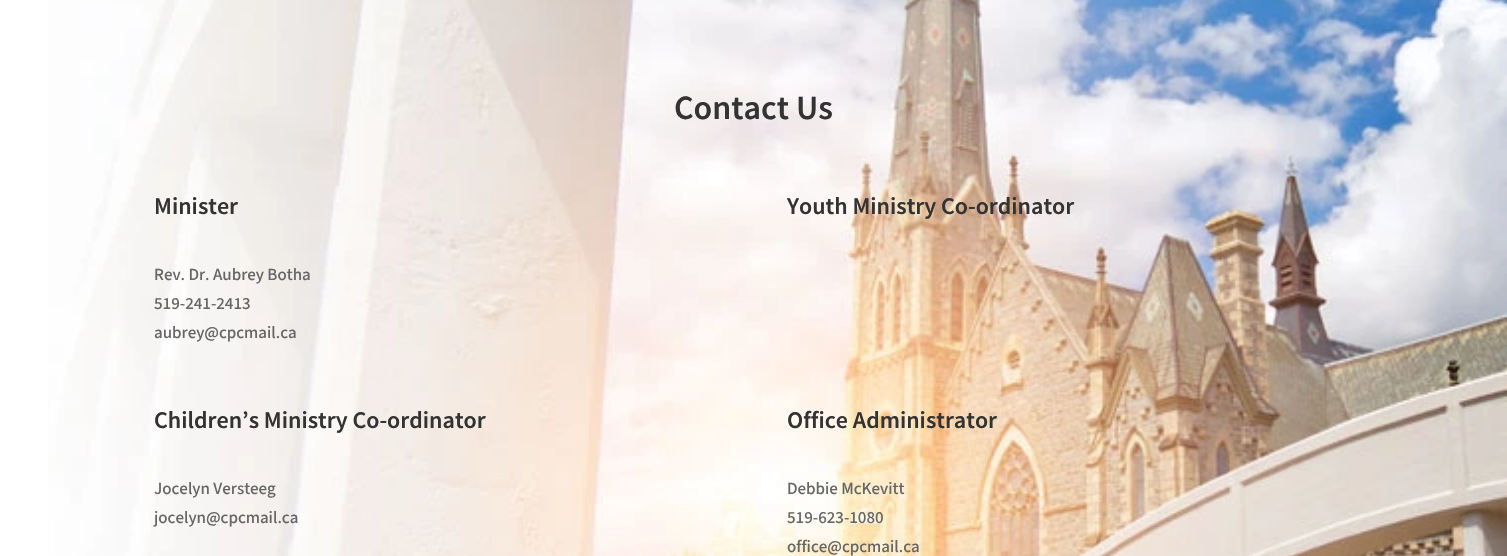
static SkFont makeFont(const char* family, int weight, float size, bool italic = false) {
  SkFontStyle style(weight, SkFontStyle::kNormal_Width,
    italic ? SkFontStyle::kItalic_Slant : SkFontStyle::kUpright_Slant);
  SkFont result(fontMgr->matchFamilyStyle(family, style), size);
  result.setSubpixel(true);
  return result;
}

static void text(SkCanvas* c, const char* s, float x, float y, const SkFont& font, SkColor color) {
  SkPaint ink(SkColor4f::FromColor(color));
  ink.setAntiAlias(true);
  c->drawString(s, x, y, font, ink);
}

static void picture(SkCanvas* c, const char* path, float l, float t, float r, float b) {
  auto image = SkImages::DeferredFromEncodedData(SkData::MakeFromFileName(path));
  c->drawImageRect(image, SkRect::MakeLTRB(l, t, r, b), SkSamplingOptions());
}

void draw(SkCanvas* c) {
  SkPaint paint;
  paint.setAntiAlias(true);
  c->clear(0xffffffff);
  picture(c, "img_01.png", 48, 0, 1507, 556);
  SkFont face1 = makeFont("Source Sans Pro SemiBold", 600, 34);
  text(c, "Contact Us", 674, 119, face1, 0xff333333);
  SkFont face2 = makeFont("Source Sans Pro SemiBold", 600, 24);
  text(c, "Minister", 154, 214, face2, 0xff333333);
  SkFont face3 = makeFont("Source Sans 3", 200, 17);
  text(c, "Rev. Dr. Aubrey Botha", 154, 280, face3, 0xff666666);
  text(c, "519-241-2413", 154, 309, face3, 0xff666666);
  text(c, "aubrey@cpcmail.ca", 154, 338, face3, 0xff666666);
  text(c, "Youth Ministry Co-ordinator", 787, 214, face2, 0xff333333);
  text(c, "Children’s Ministry Co-ordinator", 154, 428, face2, 0xff333333);
  text(c, "Jocelyn Versteeg", 154, 494, face3, 0xff666666);
  text(c, "jocelyn@cpcmail.ca", 154, 523, face3, 0xff666666);
  text(c, "Office Administrator", 787, 428, face2, 0xff333333);
  text(c, "Debbie McKevitt", 787, 494, face3, 0xff666666);
  text(c, "519-623-1080", 787, 523, face3, 0xff666666);
  text(c, "office@cpcmail.ca", 787, 552, face3, 0xff666666);
}
